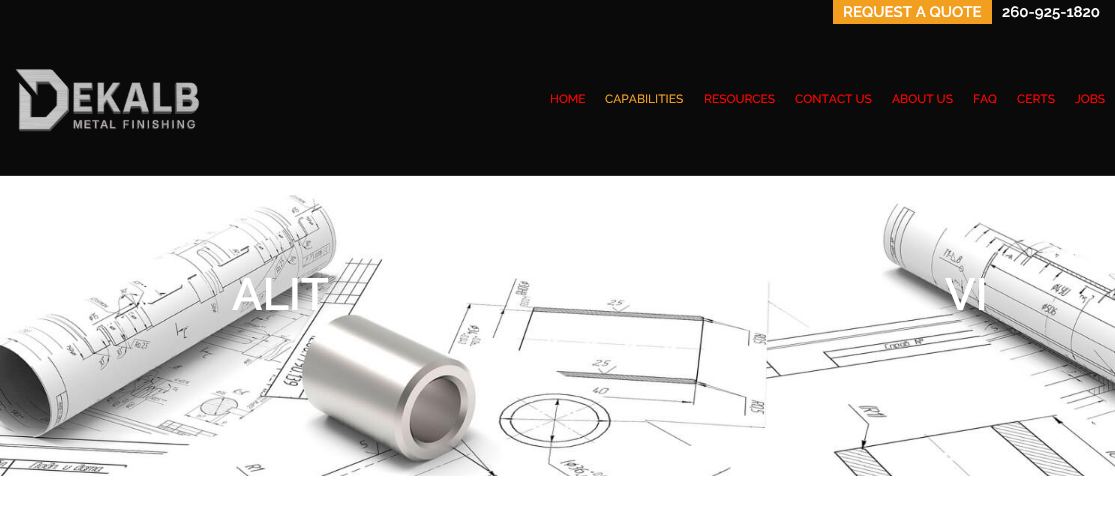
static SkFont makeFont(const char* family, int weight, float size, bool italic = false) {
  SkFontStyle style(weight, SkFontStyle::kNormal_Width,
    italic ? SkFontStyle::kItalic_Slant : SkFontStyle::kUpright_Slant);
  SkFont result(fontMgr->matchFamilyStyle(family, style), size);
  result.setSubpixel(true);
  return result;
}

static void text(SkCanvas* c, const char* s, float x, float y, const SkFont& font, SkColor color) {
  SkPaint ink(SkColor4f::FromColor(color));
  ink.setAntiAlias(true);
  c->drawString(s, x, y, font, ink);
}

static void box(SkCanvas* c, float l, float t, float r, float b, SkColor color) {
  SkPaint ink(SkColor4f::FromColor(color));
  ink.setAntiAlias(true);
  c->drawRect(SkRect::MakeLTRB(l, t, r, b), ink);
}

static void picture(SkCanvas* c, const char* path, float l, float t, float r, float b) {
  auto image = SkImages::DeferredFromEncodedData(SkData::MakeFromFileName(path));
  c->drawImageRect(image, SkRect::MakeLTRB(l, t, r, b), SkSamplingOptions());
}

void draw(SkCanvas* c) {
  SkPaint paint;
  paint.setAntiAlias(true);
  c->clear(0xff0a0a0a);
  box(c, 833, 0, 992, 24, 0xfff29e1f);
  SkFont face1 = makeFont("Raleway", 600, 15);
  text(c, "REQUEST A QUOTE", 843, 17, face1, 0xffffffff);
  text(c, "260-925-1820", 1002, 17, face1, 0xffffffff);
  box(c, 0, 175, 1115, 176, 0xff2a2a2a);
  picture(c, "img_01.png", 15, 69, 200, 132);
  SkFont face2 = makeFont("Raleway", 500, 12);
  text(c, "HOME", 550, 103, face2, 0xffff0000);
  text(c, "CAPABILITIES", 605, 103, face2, 0xfff29e1f);
  text(c, "RESOURCES", 704, 103, face2, 0xffff0000);
  text(c, "CONTACT US", 795, 103, face2, 0xffff0000);
  text(c, "ABOUT US", 892, 103, face2, 0xffff0000);
  text(c, "FAQ", 973, 103, face2, 0xffff0000);
  text(c, "CERTS", 1017, 103, face2, 0xffff0000);
  text(c, "JOBS", 1075, 103, face2, 0xffff0000);
  box(c, 0, 176, 1115, 517, 0xffffffff);
  picture(c, "img_02.png", 0, 194, 1115, 476);
  SkFont face3 = makeFont("Raleway", 600, 45);
  text(c, "ALIT", 232, 310, face3, 0xffffffff);
  text(c, "VI", 945, 310, face3, 0xffffffff);
}
